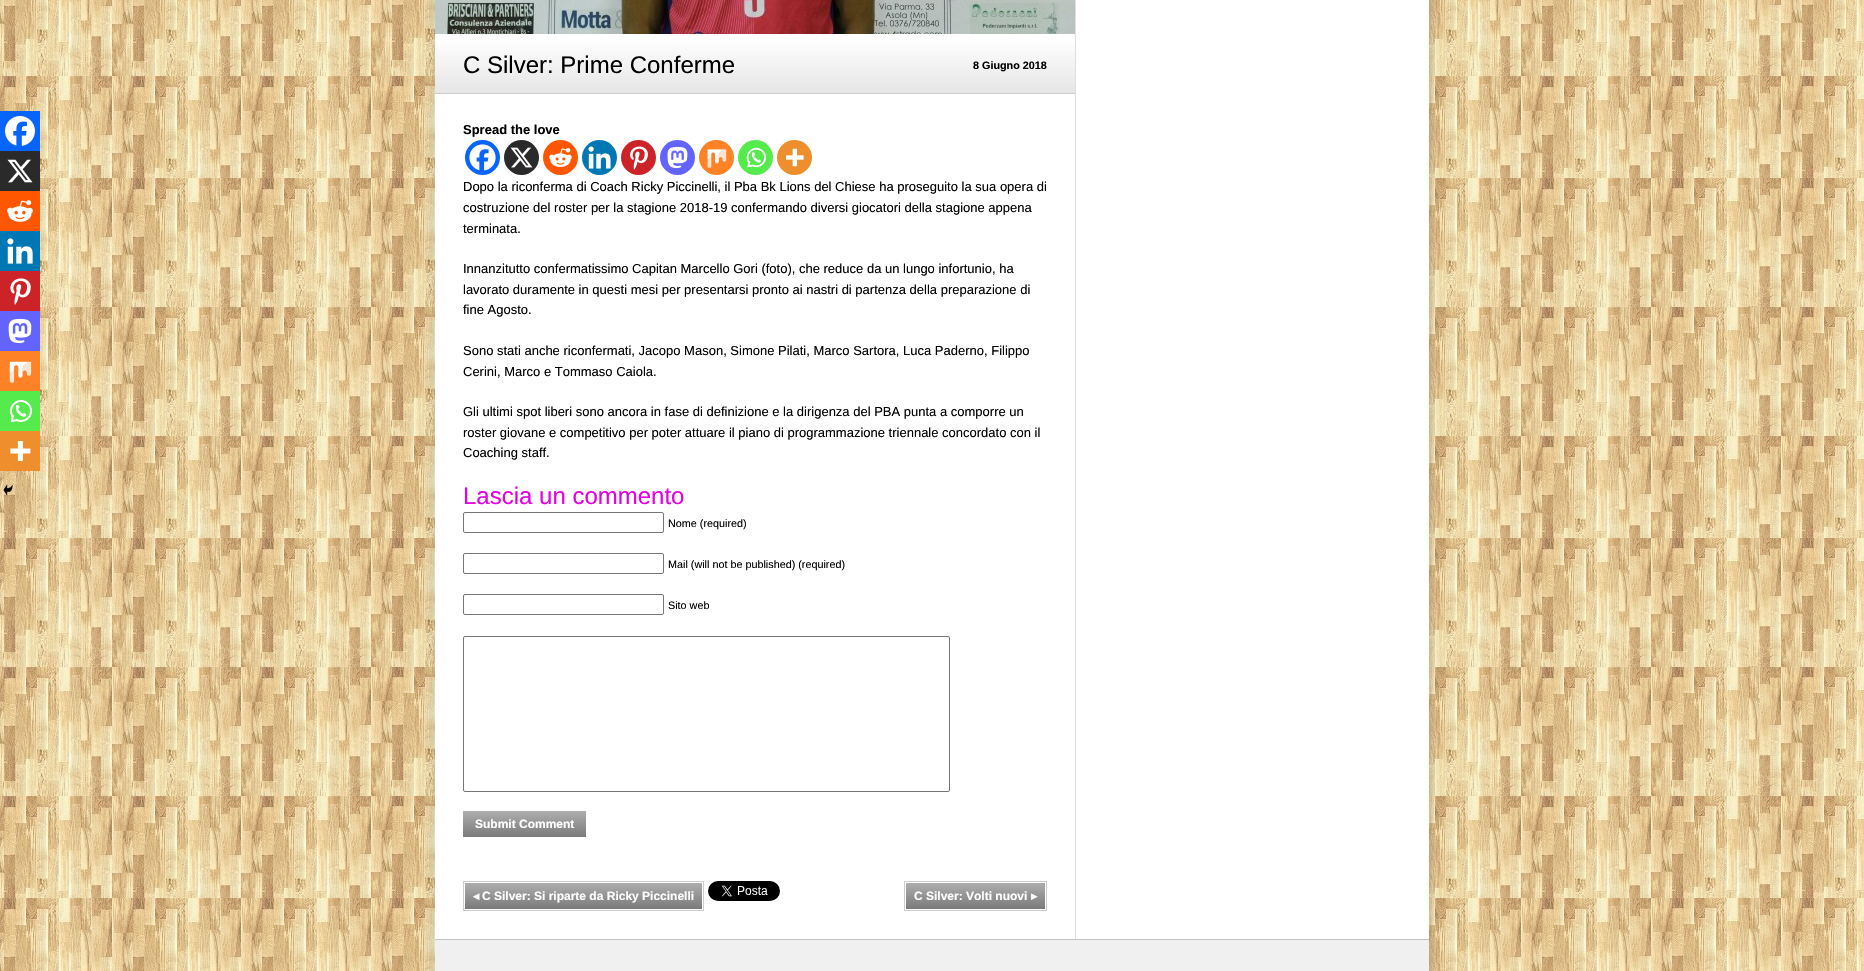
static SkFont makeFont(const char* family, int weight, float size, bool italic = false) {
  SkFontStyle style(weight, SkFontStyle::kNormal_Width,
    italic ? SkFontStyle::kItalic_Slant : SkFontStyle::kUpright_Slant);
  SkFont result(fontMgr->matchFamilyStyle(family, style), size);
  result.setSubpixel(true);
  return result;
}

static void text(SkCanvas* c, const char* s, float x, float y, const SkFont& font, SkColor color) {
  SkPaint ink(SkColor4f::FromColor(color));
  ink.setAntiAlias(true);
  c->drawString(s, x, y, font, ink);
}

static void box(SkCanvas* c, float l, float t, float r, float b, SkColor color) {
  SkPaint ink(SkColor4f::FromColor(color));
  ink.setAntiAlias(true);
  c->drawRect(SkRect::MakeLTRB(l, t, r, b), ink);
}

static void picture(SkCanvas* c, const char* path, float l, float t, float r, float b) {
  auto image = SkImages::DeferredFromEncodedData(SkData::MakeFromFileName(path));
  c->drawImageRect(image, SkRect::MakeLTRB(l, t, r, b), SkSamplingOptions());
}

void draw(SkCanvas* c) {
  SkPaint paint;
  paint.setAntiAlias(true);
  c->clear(0xffffffff);
  picture(c, "img_01.png", 0, 0, 1864, 971);
  paint.setColor(0x33000000);
  paint.setMaskFilter(SkMaskFilter::MakeBlur(kNormal_SkBlurStyle, 6));
  c->drawRect(SkRect::MakeLTRB(435, -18, 1429, 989), paint);
  paint.setMaskFilter(nullptr);
  box(c, 435, 0, 1429, 939, 0xffffffff);
  box(c, 1075, 0, 1076, 939, 0xffdfdfdf);
  picture(c, "img_02.png", 435, 0, 1075, 34);
  {
    const SkColor colors[] = {0xffffffff, 0xffe6e6e6};
    const float stops[] = {0, 1};
    const SkPoint ends[] = {{435, 37}, {435, 93}};
    paint.setShader(SkGradientShader::MakeLinear(ends, colors, stops, 2, SkTileMode::kClamp));
    paint.setAlpha(255);
  }
  c->drawRect(SkRect::MakeLTRB(435, 43, 1075, 93), paint);
  box(c, 435, 93, 1075, 94, 0xffcccccc);
  SkFont face1 = makeFont("Liberation Sans", 400, 24);
  text(c, "C Silver: Prime Conferme", 463, 73, face1, 0xff000000);
  SkFont face2 = makeFont("Liberation Sans", 700, 10.8f);
  text(c, "8 Giugno 2018", 973, 69, face2, 0xff000000);
  box(c, 0, 111, 40, 151, 0xff0765fe);
  picture(c, "img_03.png", 5, 116, 35, 146);
  box(c, 0, 151, 40, 191, 0xff2a2a2a);
  picture(c, "img_04.png", 7, 159, 33, 183);
  box(c, 0, 191, 40, 231, 0xffff5700);
  picture(c, "img_05.png", 7, 200, 33, 222);
  box(c, 0, 231, 40, 271, 0xff0077b5);
  picture(c, "img_06.png", 7, 238, 33, 264);
  box(c, 0, 271, 40, 311, 0xffcc2329);
  picture(c, "img_07.png", 10, 278, 31, 305);
  box(c, 0, 311, 40, 351, 0xff6364ff);
  picture(c, "img_08.png", 8, 318, 32, 344);
  box(c, 0, 351, 40, 391, 0xffff8226);
  picture(c, "img_09.png", 9, 361, 32, 383);
  box(c, 0, 391, 40, 431, 0xff55eb4c);
  picture(c, "img_10.png", 10, 400, 32, 423);
  box(c, 0, 431, 40, 471, 0xffee8e2d);
  picture(c, "img_11.png", 10, 441, 31, 461);
  picture(c, "img_12.png", 3, 484, 13, 496);
  SkFont face3 = makeFont("Liberation Sans", 700, 13);
  text(c, "Spread the love", 463, 134, face3, 0xff000000);
  paint.setShader(nullptr);
  paint.setColor(0xff0765fe);
  c->drawCircle(482.5f, 157.5f, 17.5f, paint);
  picture(c, "img_13.png", 469, 144, 496, 171);
  paint.setColor(0xff2a2a2a);
  c->drawCircle(521.5f, 157.5f, 17.5f, paint);
  picture(c, "img_14.png", 510, 147, 533, 168);
  paint.setColor(0xffff5700);
  c->drawCircle(560.5f, 157.5f, 17.5f, paint);
  picture(c, "img_15.png", 549, 148, 572, 167);
  paint.setColor(0xff0077b5);
  c->drawCircle(599.5f, 157.5f, 17.5f, paint);
  picture(c, "img_16.png", 588, 146, 611, 169);
  paint.setColor(0xffcc2329);
  c->drawCircle(638.5f, 157.5f, 17.5f, paint);
  picture(c, "img_17.png", 630, 146, 648, 170);
  paint.setColor(0xff6364ff);
  c->drawCircle(677.5f, 157.5f, 17.5f, paint);
  picture(c, "img_18.png", 667, 146, 688, 169);
  paint.setColor(0xffff8226);
  c->drawCircle(716.5f, 157.5f, 17.5f, paint);
  picture(c, "img_19.png", 707, 149, 727, 168);
  paint.setColor(0xff55eb4c);
  c->drawCircle(755.5f, 157.5f, 17.5f, paint);
  picture(c, "img_20.png", 746, 147, 766, 168);
  paint.setColor(0xffee8e2d);
  c->drawCircle(794.5f, 157.5f, 17.5f, paint);
  picture(c, "img_21.png", 786, 148, 804, 167);
  SkFont face4 = makeFont("Liberation Sans", 400, 13);
  text(c, "Dopo la riconferma di Coach Ricky Piccinelli, il Pba Bk Lions del Chiese ha proseguito la sua opera di", 463, 191, face4, 0xff000000);
  text(c, "costruzione del roster per la stagione 2018-19 confermando diversi giocatori della stagione appena", 463, 212, face4, 0xff000000);
  text(c, "terminata.", 463, 233, face4, 0xff000000);
  text(c, "Innanzitutto confermatissimo Capitan Marcello Gori (foto), che reduce da un lungo infortunio, ha", 463, 273, face4, 0xff000000);
  text(c, "lavorato duramente in questi mesi per presentarsi pronto ai nastri di partenza della preparazione di", 463, 294, face4, 0xff000000);
  text(c, "fine Agosto.", 463, 314, face4, 0xff000000);
  text(c, "Sono stati anche riconfermati, Jacopo Mason, Simone Pilati, Marco Sartora, Luca Paderno, Filippo", 463, 355, face4, 0xff000000);
  text(c, "Cerini, Marco e Tommaso Caiola.", 463, 376, face4, 0xff000000);
  text(c, "Gli ultimi spot liberi sono ancora in fase di definizione e la dirigenza del PBA punta a comporre un", 463, 416, face4, 0xff000000);
  text(c, "roster giovane e competitivo per poter attuare il piano di programmazione triennale concordato con il", 463, 437, face4, 0xff000000);
  text(c, "Coaching staff.", 463, 457, face4, 0xff000000);
  text(c, "Lascia un commento", 463, 504, face1, 0xffe500e5);
  paint.setStyle(SkPaint::kStroke_Style);
  paint.setStrokeWidth(1);
  paint.setColor(0xff767676);
  c->drawRoundRect(SkRect::MakeLTRB(463.5f, 512.5f, 663.5f, 532.5f), 1.5f, 1.5f, paint);
  SkFont face5 = makeFont("Liberation Sans", 400, 10.8f);
  text(c, "Nome (required)", 668, 527, face5, 0xff000000);
  c->drawRoundRect(SkRect::MakeLTRB(463.5f, 553.5f, 663.5f, 573.5f), 1.5f, 1.5f, paint);
  text(c, "Mail (will not be published) (required)", 668, 568, face5, 0xff000000);
  c->drawRoundRect(SkRect::MakeLTRB(463.5f, 594.5f, 663.5f, 614.5f), 1.5f, 1.5f, paint);
  text(c, "Sito web", 668, 609, face5, 0xff000000);
  c->drawRoundRect(SkRect::MakeLTRB(463.5f, 636.5f, 949.5f, 791.5f), 1.5f, 1.5f, paint);
  paint.setStyle(SkPaint::kFill_Style);
  {
    const SkColor colors[] = {0xffaeaeae, 0xff7a7a7a};
    const float stops[] = {0, 1};
    const SkPoint ends[] = {{463, 811}, {463, 837}};
    paint.setShader(SkGradientShader::MakeLinear(ends, colors, stops, 2, SkTileMode::kClamp));
    paint.setAlpha(255);
  }
  c->drawRect(SkRect::MakeLTRB(463, 811, 586, 837), paint);
  SkFont face6 = makeFont("Liberation Sans", 700, 12);
  text(c, "Submit Comment", 475, 828, face6, 0xffffffff);
  picture(c, "img_22.png", 708, 881, 780, 901);
  paint.setStyle(SkPaint::kStroke_Style);
  paint.setShader(nullptr);
  paint.setColor(0xffcccccc);
  c->drawRect(SkRect::MakeLTRB(463.5f, 881.5f, 703.5f, 910.5f), paint);
  paint.setStyle(SkPaint::kFill_Style);
  {
    const SkColor colors[] = {0xffaeaeae, 0xff7a7a7a};
    const float stops[] = {0, 1};
    const SkPoint ends[] = {{465, 883}, {465, 909}};
    paint.setShader(SkGradientShader::MakeLinear(ends, colors, stops, 2, SkTileMode::kClamp));
    paint.setAlpha(255);
  }
  c->drawRect(SkRect::MakeLTRB(465, 883, 702, 909), paint);
  SkFont face7 = makeFont("DejaVu Sans", 700, 12);
  text(c, "◂", 473, 900, face7, 0xffffffff);
  text(c, "C Silver: Si riparte da Ricky Piccinelli", 482, 900, face6, 0xffffffff);
  paint.setStyle(SkPaint::kStroke_Style);
  paint.setShader(nullptr);
  paint.setColor(0xffcccccc);
  c->drawRect(SkRect::MakeLTRB(904.5f, 881.5f, 1046.5f, 910.5f), paint);
  paint.setStyle(SkPaint::kFill_Style);
  {
    const SkColor colors[] = {0xffaeaeae, 0xff7a7a7a};
    const float stops[] = {0, 1};
    const SkPoint ends[] = {{906, 883}, {906, 909}};
    paint.setShader(SkGradientShader::MakeLinear(ends, colors, stops, 2, SkTileMode::kClamp));
    paint.setAlpha(255);
  }
  c->drawRect(SkRect::MakeLTRB(906, 883, 1045, 909), paint);
  text(c, "C Silver: Volti nuovi", 914, 900, face6, 0xffffffff);
  text(c, "▸", 1031, 900, face7, 0xffffffff);
  box(c, 435, 940, 1429, 971, 0xfff0f0f0);
  box(c, 435, 939, 1429, 940, 0xffc3c3c3);
}
